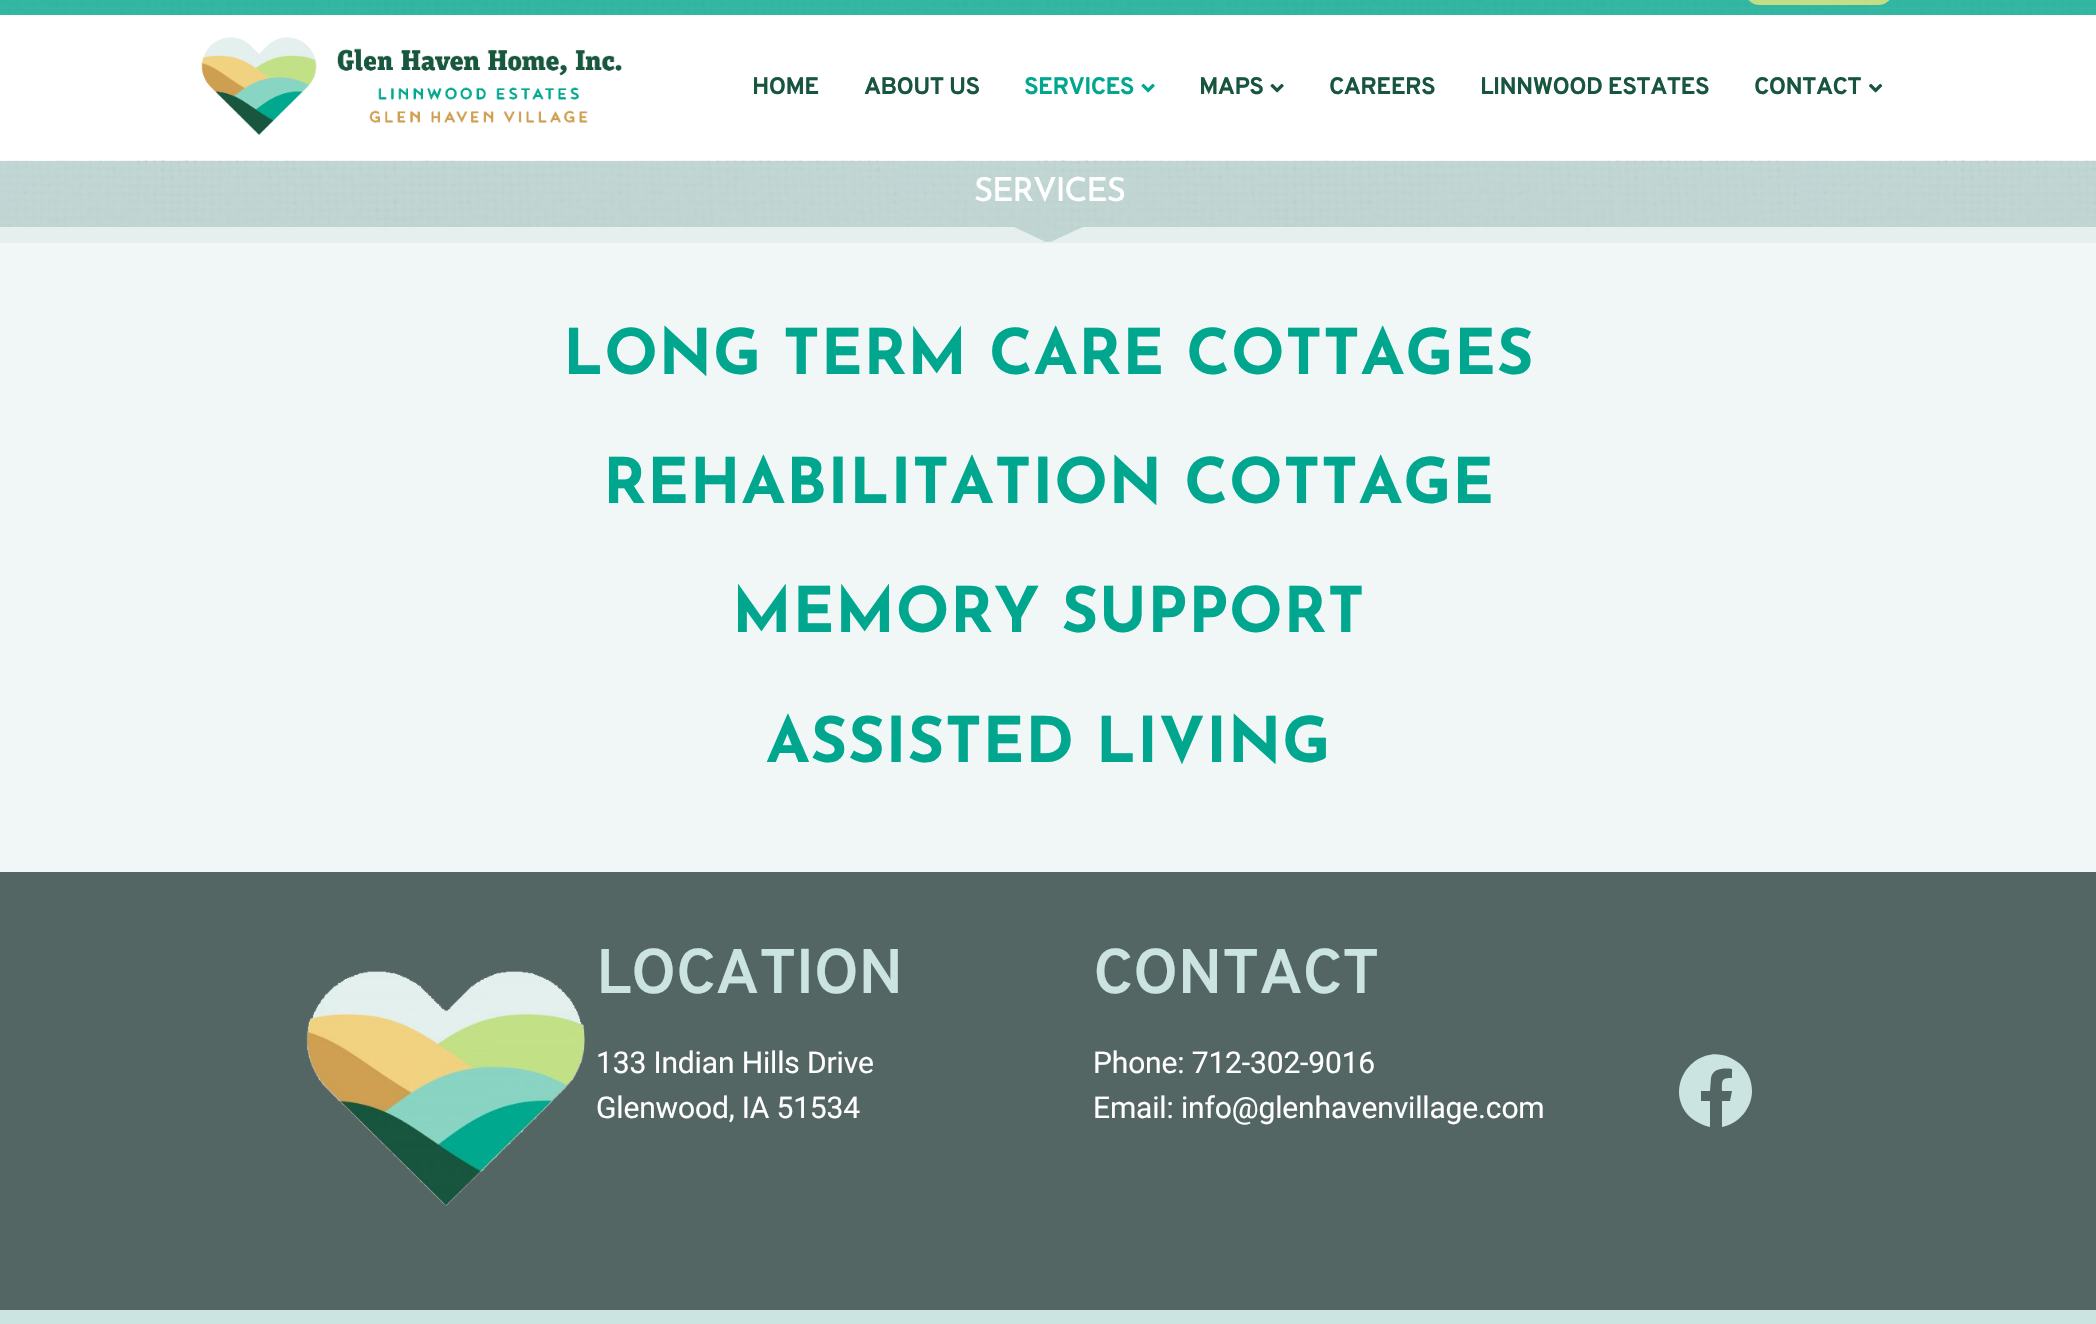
static SkFont makeFont(const char* family, int weight, float size, bool italic = false) {
  SkFontStyle style(weight, SkFontStyle::kNormal_Width,
    italic ? SkFontStyle::kItalic_Slant : SkFontStyle::kUpright_Slant);
  SkFont result(fontMgr->matchFamilyStyle(family, style), size);
  result.setSubpixel(true);
  return result;
}

static void spacedText(SkCanvas* c, const char* s, float x, float y, const SkFont& font, const SkPaint& ink, float letter, float word) {
  std::vector<SkGlyphID> glyphs(font.countText(s, strlen(s), SkTextEncoding::kUTF8));
  std::vector<float> xs(glyphs.size());
  font.textToGlyphs(s, strlen(s), SkTextEncoding::kUTF8, glyphs);
  font.getXPos(glyphs, xs, x);
  float extra = 0;
  for (size_t i = 0; i < glyphs.size(); i++) {
    xs[i] += extra;
    extra += letter + word * (glyphs[i] == font.unicharToGlyph(' '));
  }
  c->drawTextBlob(SkTextBlob::MakeFromPosHGlyphs(glyphs, xs, y, font), 0, 0, ink);
}

static void box(SkCanvas* c, float l, float t, float r, float b, SkColor color) {
  SkPaint ink(SkColor4f::FromColor(color));
  ink.setAntiAlias(true);
  c->drawRect(SkRect::MakeLTRB(l, t, r, b), ink);
}

static void roundBox(SkCanvas* c, float l, float t, float r, float b, float radius, SkColor color) {
  SkPaint ink(SkColor4f::FromColor(color));
  ink.setAntiAlias(true);
  c->drawRoundRect(SkRect::MakeLTRB(l, t, r, b), radius, radius, ink);
}

static void picture(SkCanvas* c, const char* path, float l, float t, float r, float b) {
  auto image = SkImages::DeferredFromEncodedData(SkData::MakeFromFileName(path));
  c->drawImageRect(image, SkRect::MakeLTRB(l, t, r, b), SkSamplingOptions());
}

void draw(SkCanvas* c) {
  SkPaint paint;
  paint.setAntiAlias(true);
  c->clear(0xffffffff);
  box(c, 1043, 241, 1053, 242, 0xffc4d9d8);
  picture(c, "img_01.png", 0, 0, 2096, 15);
  roundBox(c, 1745, -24, 1893, 5, 24, 0xffc2df85);
  picture(c, "img_02.png", 201, 37, 622, 136);
  SkFont face1 = makeFont("Overpass", 700, 24);
  paint.setColor(0xff18553e);
  spacedText(c, "HOME", 752, 94, face1, paint, -0.6f, 0);
  spacedText(c, "ABOUT US", 864, 94, face1, paint, -0.6f, 0);
  paint.setColor(0xff00a78e);
  spacedText(c, "SERVICES", 1024, 94, face1, paint, -0.6f, 0);
  picture(c, "img_03.png", 1141, 83, 1155, 93);
  paint.setColor(0xff18553e);
  spacedText(c, "MAPS", 1199, 94, face1, paint, -0.6f, 0);
  picture(c, "img_04.png", 1270, 83, 1284, 93);
  spacedText(c, "CAREERS", 1329, 94, face1, paint, -0.6f, 0);
  spacedText(c, "LINNWOOD ESTATES", 1480, 94, face1, paint, -0.6f, 0);
  spacedText(c, "CONTACT", 1754, 94, face1, paint, -0.6f, 0);
  picture(c, "img_05.png", 1869, 83, 1883, 93);
  picture(c, "img_06.png", 0, 160, 2096, 242);
  SkFont face2 = makeFont("Josefin Sans", 500, 33);
  paint.setColor(0xffffffff);
  spacedText(c, "SERVICES", 974, 201, face2, paint, -1.25f, 0);
  c->save();
  c->clipRect(SkRect::MakeLTRB(0, 227, 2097, 243));
  paint.setColor(0xffe4efee);
  c->drawPath(SkPathBuilder().moveTo(1085, 226).lineTo(1048, 243).lineTo(1012, 226).lineTo(-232, 226).lineTo(-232, 243).lineTo(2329, 243).lineTo(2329, 226).detach(), paint);
  c->restore();
  box(c, 0, 242, 2096, 872, 0x80e4efee);
  SkFont face3 = makeFont("Josefin Sans", 700, 63);
  paint.setColor(0xff00a78e);
  spacedText(c, "LONG TERM CARE COTTAGES", 563, 374, face3, paint, 0.75f, 0);
  spacedText(c, "REHABILITATION COTTAGE", 603, 503, face3, paint, 0.75f, 0);
  spacedText(c, "MEMORY SUPPORT", 732, 632, face3, paint, 0.75f, 0);
  spacedText(c, "ASSISTED LIVING", 766, 762, face3, paint, 0.75f, 0);
  box(c, 0, 872, 2096, 1310, 0xff536664);
  picture(c, "img_07.png", 306, 971, 585, 1206);
  SkFont face4 = makeFont("Overpass", 600, 63);
  paint.setColor(0xffcbe4e2);
  spacedText(c, "LOCATION", 596, 993, face4, paint, -0.75f, 0);
  SkFont face5 = makeFont("Roboto", 400, 30);
  paint.setColor(0xffffffff);
  spacedText(c, "133 Indian Hills Drive", 596, 1073, face5, paint, -0.15f, 0);
  spacedText(c, "Glenwood, IA 51534", 596, 1118, face5, paint, -0.15f, 0);
  paint.setColor(0xffcbe4e2);
  spacedText(c, "CONTACT", 1093, 993, face4, paint, -0.75f, 0);
  paint.setColor(0xffffffff);
  spacedText(c, "Phone: 712-302-9016", 1093, 1073, face5, paint, -0.15f, 0);
  spacedText(c, "Email: info@glenhavenvillage.com", 1093, 1118, face5, paint, -0.15f, 0);
  paint.setColor(0xffcbe4e2);
  c->drawPath(SkPathBuilder().moveTo(1752, 1091).cubicTo(1752, 1108, 1739, 1124, 1722, 1127).lineTo(1722, 1101).lineTo(1730, 1101).lineTo(1732, 1091).lineTo(1722, 1091).cubicTo(1722, 1080, 1721, 1078, 1732, 1078).lineTo(1732, 1069).cubicTo(1724, 1068, 1713, 1068, 1711, 1078).lineTo(1710, 1091).lineTo(1701, 1091).lineTo(1701, 1101).lineTo(1710, 1101).lineTo(1710, 1127).cubicTo(1702, 1125, 1694, 1121, 1688, 1115).cubicTo(1661, 1083, 1701, 1037, 1736, 1061).cubicTo(1746, 1067, 1752, 1079, 1752, 1091).close().detach(), paint);
  box(c, 0, 1310, 2096, 1324, 0xffcbe4e2);
}
